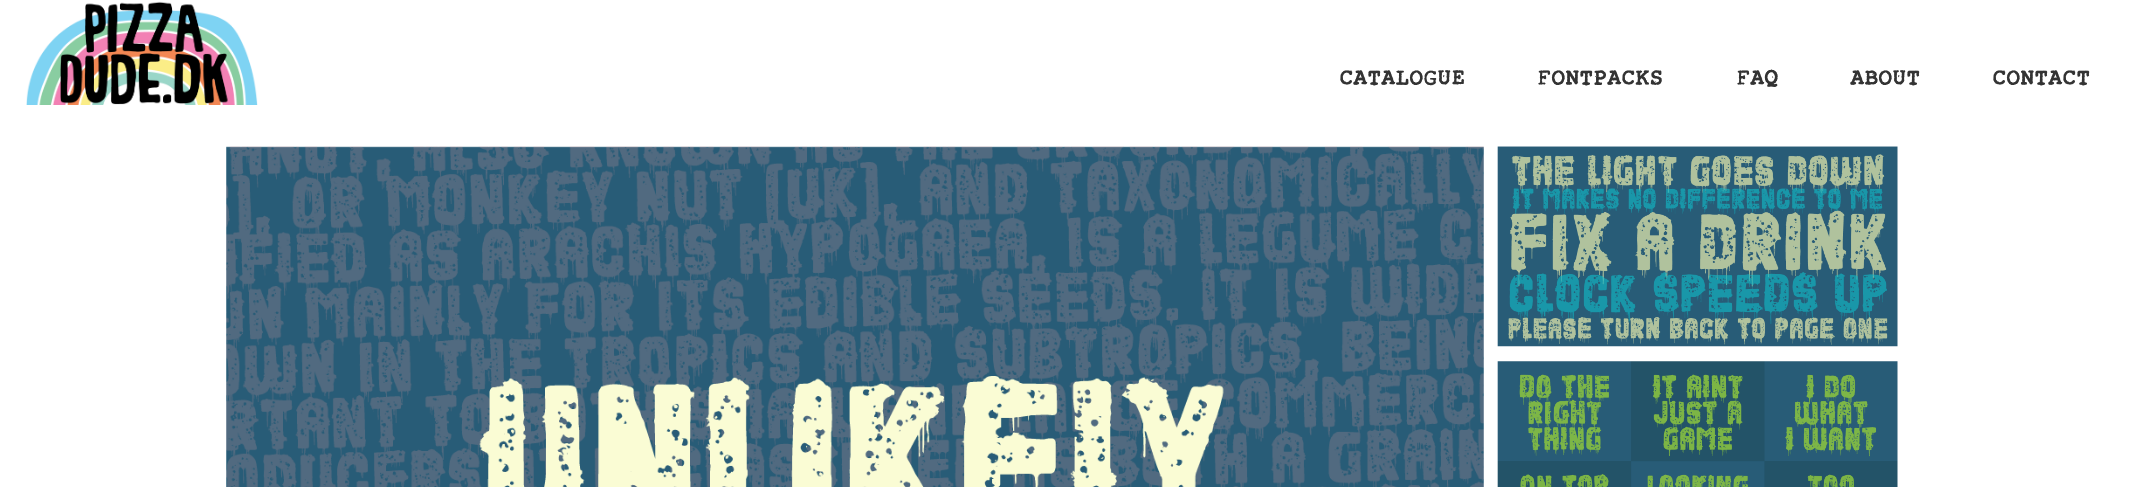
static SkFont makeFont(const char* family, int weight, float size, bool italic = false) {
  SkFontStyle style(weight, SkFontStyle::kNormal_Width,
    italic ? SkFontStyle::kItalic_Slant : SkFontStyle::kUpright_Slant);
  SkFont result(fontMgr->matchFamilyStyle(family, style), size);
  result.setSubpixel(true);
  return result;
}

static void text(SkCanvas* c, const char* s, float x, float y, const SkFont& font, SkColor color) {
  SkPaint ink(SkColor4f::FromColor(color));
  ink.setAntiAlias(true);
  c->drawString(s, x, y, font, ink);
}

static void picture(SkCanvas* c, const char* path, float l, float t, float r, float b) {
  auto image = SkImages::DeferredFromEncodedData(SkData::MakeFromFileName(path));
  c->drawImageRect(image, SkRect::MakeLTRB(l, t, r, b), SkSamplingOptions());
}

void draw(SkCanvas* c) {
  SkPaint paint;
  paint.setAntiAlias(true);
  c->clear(0xffffffff);
  picture(c, "img_01.png", 26, 1, 258, 105);
  SkFont face1 = makeFont("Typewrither", 700, 20);
  text(c, "CATALOGUE", 1339, 85, face1, 0xff333333);
  text(c, "FONTPACKS", 1537, 85, face1, 0xff333333);
  text(c, "FAQ", 1736, 85, face1, 0xff333333);
  text(c, "ABOUT", 1850, 85, face1, 0xff333333);
  text(c, "CONTACT", 1992, 85, face1, 0xff333333);
  picture(c, "img_02.png", 226, 146, 1484, 487);
  picture(c, "img_03.png", 1497, 146, 1898, 347);
  picture(c, "img_04.png", 1497, 361, 1898, 487);
}
